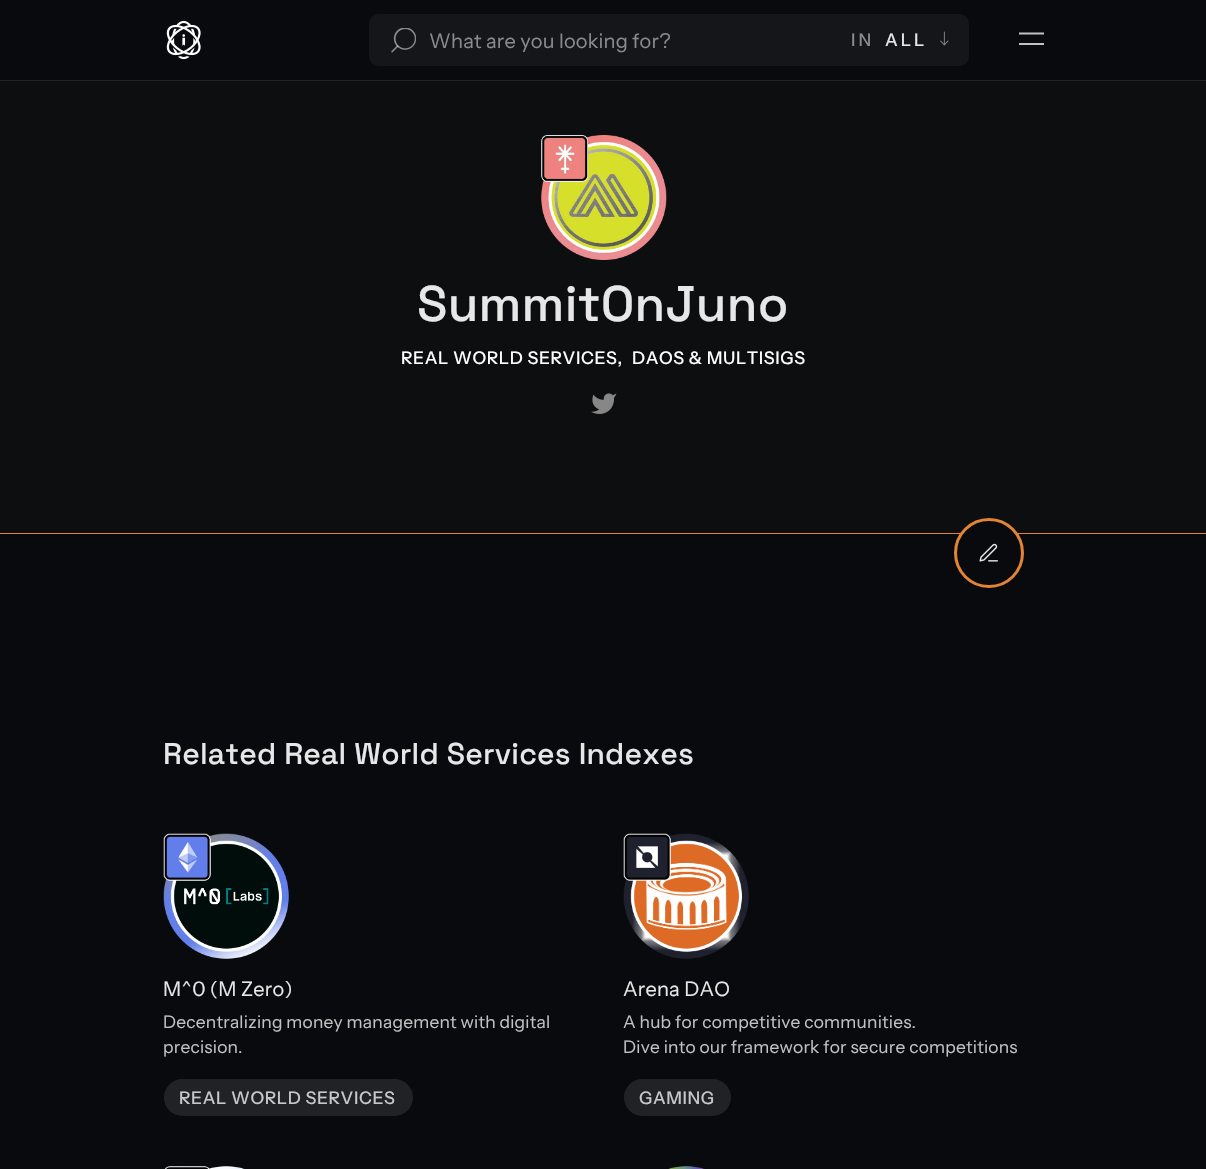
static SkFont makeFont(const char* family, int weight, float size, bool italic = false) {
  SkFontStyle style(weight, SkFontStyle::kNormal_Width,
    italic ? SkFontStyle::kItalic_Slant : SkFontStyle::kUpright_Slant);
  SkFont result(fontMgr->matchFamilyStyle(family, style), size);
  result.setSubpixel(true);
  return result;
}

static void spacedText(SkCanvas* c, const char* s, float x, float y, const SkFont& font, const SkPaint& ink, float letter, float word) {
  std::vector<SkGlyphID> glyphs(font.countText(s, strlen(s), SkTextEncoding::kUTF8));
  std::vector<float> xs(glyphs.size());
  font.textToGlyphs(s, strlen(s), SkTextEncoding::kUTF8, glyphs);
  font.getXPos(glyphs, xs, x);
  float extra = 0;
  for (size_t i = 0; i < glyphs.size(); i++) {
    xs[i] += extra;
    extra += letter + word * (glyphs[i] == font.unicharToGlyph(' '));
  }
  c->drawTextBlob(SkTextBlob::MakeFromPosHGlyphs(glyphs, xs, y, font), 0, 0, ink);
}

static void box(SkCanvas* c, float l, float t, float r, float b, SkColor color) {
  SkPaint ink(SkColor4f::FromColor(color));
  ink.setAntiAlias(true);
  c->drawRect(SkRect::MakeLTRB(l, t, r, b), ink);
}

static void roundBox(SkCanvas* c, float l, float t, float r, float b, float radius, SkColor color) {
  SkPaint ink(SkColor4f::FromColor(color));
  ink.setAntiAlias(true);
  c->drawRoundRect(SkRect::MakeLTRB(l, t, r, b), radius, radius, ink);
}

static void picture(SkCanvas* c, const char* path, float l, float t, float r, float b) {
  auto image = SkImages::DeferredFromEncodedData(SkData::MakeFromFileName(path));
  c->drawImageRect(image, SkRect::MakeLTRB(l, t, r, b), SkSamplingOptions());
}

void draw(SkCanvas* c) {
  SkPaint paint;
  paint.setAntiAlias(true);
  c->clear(0xff090a0d);
  box(c, 0, 80, 1206, 81, 0xff222325);
  picture(c, "img_01.png", 166, 20, 201, 60);
  roundBox(c, 369, 14, 969, 66, 10, 0xff151619);
  picture(c, "img_02.png", 391, 28, 416, 53);
  SkFont face1 = makeFont("Instrument Sans", 400, 20);
  paint.setColor(0xff8a8b8c);
  spacedText(c, "What are you looking for?", 429, 48, face1, paint, 0.2f, 0);
  SkFont face2 = makeFont("Instrument Sans", 500, 17.4f);
  spacedText(c, "IN", 851, 46, face2, paint, 3, 0);
  paint.setColor(0xffe7e7e7);
  spacedText(c, "ALL", 885, 46, face2, paint, 3, 0);
  picture(c, "img_03.png", 940, 31, 949, 46);
  paint.setColor(0xffc2c2c3);
  c->drawPath(SkPathBuilder(SkPathFillType::kEvenOdd).moveTo(1044, 34.5f).lineTo(1019, 34.5f).lineTo(1019, 32.5f).lineTo(1044, 32.5f).close().moveTo(1044, 45).lineTo(1019, 45).lineTo(1019, 43).lineTo(1044, 43).close().detach(), paint);
  box(c, 0, 533, 1206, 534, 0xffe38434);
  box(c, 0, 81, 1206, 533, 0xff0d0e10);
  picture(c, "img_05.png", 551, 145, 657, 250);
  picture(c, "img_04.png", 541, 135, 667, 260);
  SkFont face3 = makeFont("Space Grotesk", 500, 50);
  paint.setColor(0xffe7e7e7);
  spacedText(c, "SummitOnJuno", 417, 321, face3, paint, 0.2f, 0);
  paint.setColor(0xffffffff);
  spacedText(c, "REAL WORLD SERVICES,", 401, 364, face2, paint, 0.6f, 0);
  spacedText(c, "DAOS & MULTISIGS", 632, 364, face2, paint, 0.6f, 0);
  picture(c, "img_06.png", 591, 393, 617, 414);
  paint.setColor(0xff090a0d);
  c->drawCircle(989, 553, 33.5f, paint);
  paint.setStyle(SkPaint::kStroke_Style);
  paint.setStrokeWidth(3);
  paint.setColor(0xffe38434);
  c->drawCircle(989, 553, 33.5f, paint);
  picture(c, "img_07.png", 979, 543, 998, 562);
  SkFont face4 = makeFont("Space Grotesk", 500, 30);
  paint.setStyle(SkPaint::kFill_Style);
  paint.setColor(0xffe7e7e7);
  spacedText(c, "Related Real World Services Indexes", 163, 764, face4, paint, 0.2f, 0);
  picture(c, "img_09.png", 173, 843, 279, 949);
  picture(c, "img_08.png", 163, 833, 289, 959);
  spacedText(c, "M^0 (M Zero)", 163, 996, face1, paint, 0.2f, 0);
  SkFont face5 = makeFont("Instrument Sans", 400, 17.4f);
  paint.setColor(0xffc2c2c3);
  spacedText(c, "Decentralizing money management with digital", 163, 1028, face5, paint, 0.2f, 0);
  spacedText(c, "precision.", 163, 1053, face5, paint, 0.2f, 0);
  roundBox(c, 164, 1079, 413, 1116, 18.5f, 0xff212226);
  paint.setColor(0xffc8c8c9);
  spacedText(c, "REAL WORLD SERVICES", 179, 1104, face2, paint, 0.6f, 0);
  picture(c, "img_11.png", 633, 843, 739, 949);
  picture(c, "img_10.png", 623, 833, 749, 959);
  paint.setColor(0xffe7e7e7);
  spacedText(c, "Arena DAO", 623, 996, face1, paint, 0.2f, 0);
  paint.setColor(0xffc2c2c3);
  spacedText(c, "A hub for competitive communities.", 623, 1028, face5, paint, 0.2f, 0);
  spacedText(c, "Dive into our framework for secure competitions", 623, 1053, face5, paint, 0.2f, 0);
  roundBox(c, 624, 1079, 731, 1116, 18.5f, 0xff212226);
  paint.setColor(0xffc8c8c9);
  spacedText(c, "GAMING", 639, 1104, face2, paint, 0.6f, 0);
  picture(c, "img_12.png", 165, 1166, 245, 1169);
  picture(c, "img_13.png", 668, 1166, 705, 1169);
}
